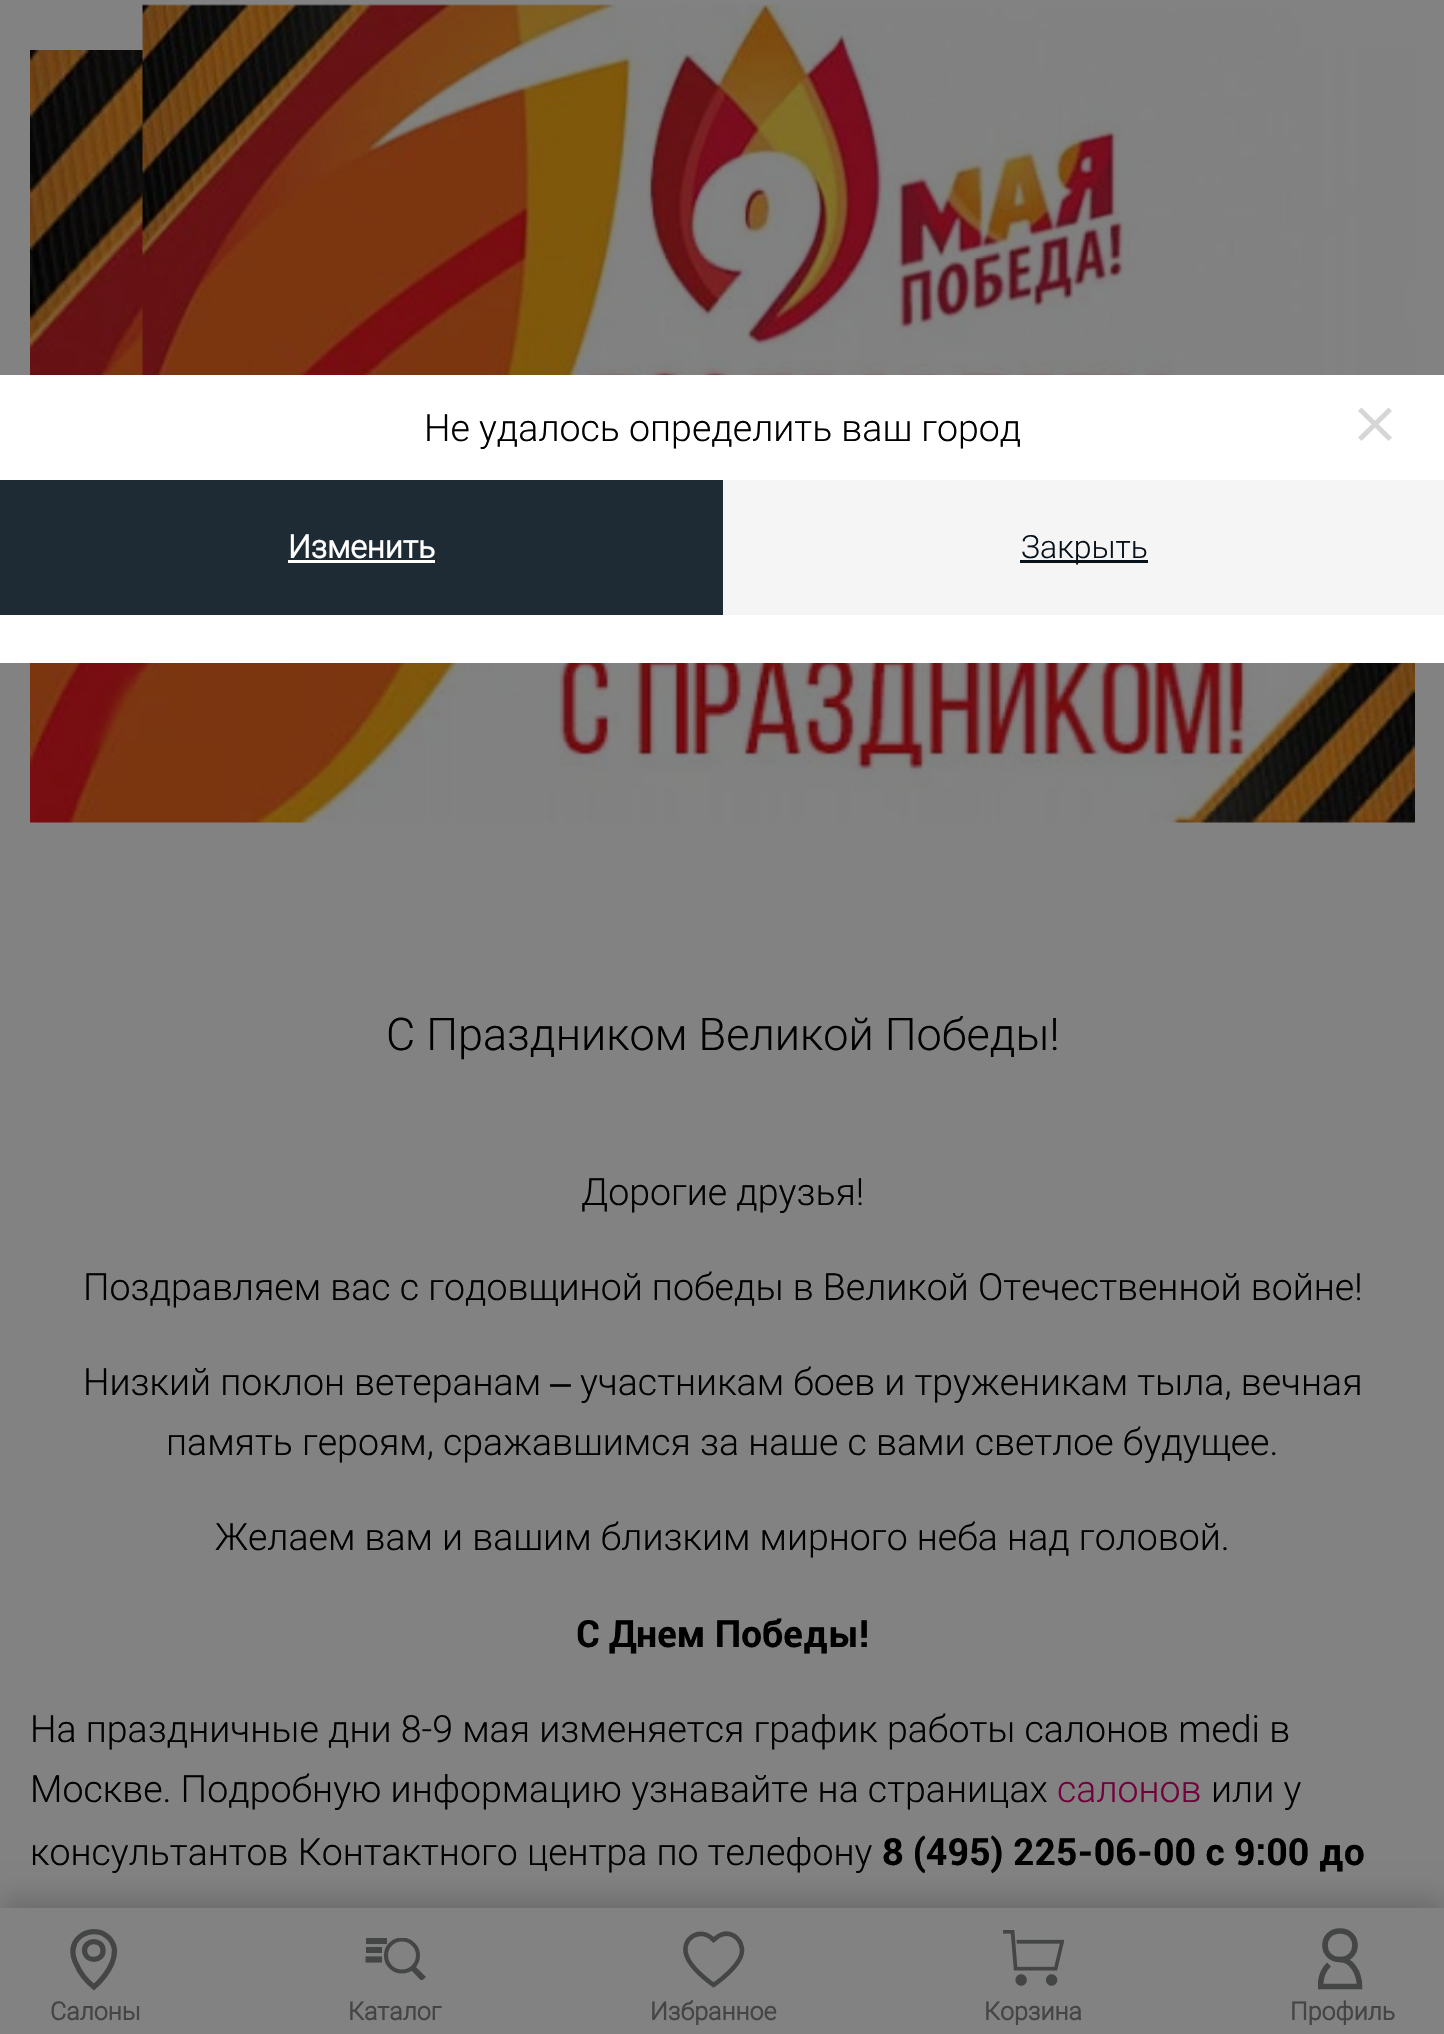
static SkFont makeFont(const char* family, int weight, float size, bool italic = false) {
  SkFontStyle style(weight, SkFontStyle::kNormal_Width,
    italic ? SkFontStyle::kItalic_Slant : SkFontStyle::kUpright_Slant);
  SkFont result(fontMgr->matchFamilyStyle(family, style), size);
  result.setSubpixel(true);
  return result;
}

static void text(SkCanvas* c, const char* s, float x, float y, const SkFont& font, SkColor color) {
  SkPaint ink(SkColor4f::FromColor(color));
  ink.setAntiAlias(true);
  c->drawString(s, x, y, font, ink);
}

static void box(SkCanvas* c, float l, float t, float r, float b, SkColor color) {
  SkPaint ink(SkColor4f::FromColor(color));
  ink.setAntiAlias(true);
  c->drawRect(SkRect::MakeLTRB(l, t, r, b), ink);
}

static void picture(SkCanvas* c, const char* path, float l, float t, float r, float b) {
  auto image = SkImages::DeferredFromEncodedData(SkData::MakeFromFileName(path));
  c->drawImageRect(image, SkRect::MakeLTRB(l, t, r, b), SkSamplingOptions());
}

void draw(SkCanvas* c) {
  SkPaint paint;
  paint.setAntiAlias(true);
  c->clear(0xff828282);
  picture(c, "img_01.png", 30, 50, 1415, 823);
  box(c, 0, 375, 1444, 480, 0xffffffff);
  SkFont face1 = makeFont("Roboto", 300, 37.5f);
  text(c, "Не удалось определить ваш город", 424, 441, face1, 0xff000000);
  paint.setColor(0xffd6d6d6);
  c->drawPath(SkPathBuilder().moveTo(1388.5f, 407.5f).lineTo(1392, 411).lineTo(1361.5f, 441).lineTo(1358, 437.5f).close().detach(), paint);
  c->drawPath(SkPathBuilder().moveTo(1358, 411).lineTo(1361.5f, 407.5f).lineTo(1392, 437.5f).lineTo(1388.5f, 441).close().detach(), paint);
  box(c, 0, 615, 1444, 663, 0xffffffff);
  box(c, 0, 480, 723, 615, 0xff1e2b34);
  SkFont face2 = makeFont("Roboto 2", 700, 32);
  text(c, "Изменить", 288, 558, face2, 0xffffffff);
  box(c, 288, 560, 435, 563, 0xffffffff);
  box(c, 723, 480, 1444, 615, 0xfff5f5f5);
  box(c, 1020, 560, 1148, 563, 0xff07121b);
  SkFont face3 = makeFont("Roboto", 300, 32);
  text(c, "Закрыть", 1021, 558, face3, 0xff07121b);
  picture(c, "img_02.png", 142, 4, 1303, 375);
  SkFont face4 = makeFont("Roboto", 300, 45);
  text(c, "С Праздником Великой Победы!", 386, 1050, face4, 0xff000000);
  text(c, "Дорогие друзья!", 581, 1205, face1, 0xff000000);
  text(c, "Поздравляем вас с годовщиной победы в Великой Отечественной войне!", 83, 1300, face1, 0xff000000);
  text(c, "Низкий поклон ветеранам", 83, 1395, face1, 0xff000000);
  SkFont face5 = makeFont("Liberation Sans", 400, 37.5f);
  text(c, "–", 550, 1395, face5, 0xff000000);
  text(c, "участникам боев и труженикам тыла, вечная", 580, 1395, face1, 0xff000000);
  text(c, "память героям, сражавшимся за наше с вами светлое будущее.", 166, 1455, face1, 0xff000000);
  text(c, "Желаем вам и вашим близким мирного неба над головой.", 215, 1550, face1, 0xff000000);
  SkFont face6 = makeFont("Roboto", 700, 37.5f);
  text(c, "С Днем Победы!", 576, 1647, face6, 0xff000000);
  text(c, "На праздничные дни 8-9 мая изменяется график работы салонов medi в", 30, 1742, face1, 0xff000000);
  text(c, "Москве. Подробную информацию узнавайте на страницах", 30, 1802, face1, 0xff000000);
  text(c, "салонов", 1057, 1802, face1, 0xff73003b);
  text(c, "или у", 1211, 1802, face1, 0xff000000);
  text(c, "консультантов Контактного центра по телефону", 30, 1865, face1, 0xff000000);
  text(c, "8 (495) 225-06-00 с 9:00 до", 882, 1865, face6, 0xff000000);
  paint.setColor(0x2e000000);
  paint.setMaskFilter(SkMaskFilter::MakeBlur(kNormal_SkBlurStyle, 12.5f));
  c->drawRect(SkRect::MakeLTRB(0, 1898, 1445, 2025), paint);
  paint.setMaskFilter(nullptr);
  box(c, 0, 1908, 1444, 2034, 0xff828282);
  paint.setStyle(SkPaint::kStroke_Style);
  paint.setStrokeWidth(5.3f);
  paint.setColor(0xff444545);
  c->drawPath(SkPathBuilder().moveTo(103, 1950.5f).cubicTo(103.5f, 1962, 85, 1962.5f, 84.5f, 1950.5f).cubicTo(84.5f, 1939, 103, 1938.5f, 103, 1950.5f).close().moveTo(114.5f, 1951).cubicTo(114.5f, 1946.5f, 112.5f, 1942, 109.5f, 1938.5f).cubicTo(98, 1925.5f, 75.5f, 1932, 73, 1949).cubicTo(72.5f, 1954.5f, 74, 1960, 76.5f, 1964.5f).cubicTo(80, 1973, 86.5f, 1981, 94, 1987).cubicTo(94, 1987, 114.5f, 1970, 114.5f, 1951).close().detach(), paint);
  SkFont face7 = makeFont("Roboto 2", 700, 25);
  text(c, "Салоны", 50, 2020, face7, 0xff444545);
  c->save();
  c->clipRect(SkRect::MakeLTRB(365, 1938, 428, 1980));
  paint.setStyle(SkPaint::kFill_Style);
  c->drawPath(SkPathBuilder().moveTo(414.5f, 1965.5f).lineTo(410.5f, 1969.5f).lineTo(421.5f, 1981).lineTo(426, 1977).close().detach(), paint);
  paint.setStyle(SkPaint::kStroke_Style);
  paint.setStrokeWidth(4.1f);
  c->drawPath(SkPathBuilder().moveTo(402, 1971.5f).cubicTo(410.5f, 1971.5f, 418, 1964.5f, 418, 1955.5f).cubicTo(418, 1946.5f, 410.5f, 1939.5f, 402, 1939.5f).cubicTo(393, 1939.5f, 386, 1946.5f, 386, 1955.5f).cubicTo(386, 1964.5f, 393, 1971.5f, 402, 1971.5f).close().detach(), paint);
  c->restore();
  box(c, 366, 1938, 387, 1944, 0xff444545);
  box(c, 366, 1947, 382, 1953, 0xff444545);
  paint.setStrokeWidth(6.2f);
  c->drawPath(SkPathBuilder().moveTo(365.5f, 1959.5f).lineTo(382, 1959.5f).detach(), paint);
  text(c, "Каталог", 348, 2020, face7, 0xff444545);
  paint.setStrokeWidth(4.6f);
  c->drawPath(SkPathBuilder().moveTo(742, 1950.5f).cubicTo(742, 1962.5f, 725, 1976.5f, 716.5f, 1983).lineTo(713.5f, 1985).cubicTo(704, 1978, 690.5f, 1967.5f, 686.5f, 1955.5f).cubicTo(680.5f, 1938, 701, 1926, 713.5f, 1940).cubicTo(715.5f, 1938.5f, 717.5f, 1936.5f, 719.5f, 1935.5f).cubicTo(730, 1930, 740, 1937.5f, 742, 1948.5f).close().detach(), paint);
  text(c, "Избранное", 650, 2020, face7, 0xff444545);
  picture(c, "img_03.png", 1003, 1930, 1064, 1986);
  text(c, "Корзина", 984, 2020, face7, 0xff444545);
  c->save();
  c->clipRect(SkRect::MakeLTRB(1318, 1928, 1365, 1990));
  paint.setStrokeWidth(5.6f);
  c->drawPath(SkPathBuilder().moveTo(1340, 1959.5f).cubicTo(1351, 1959.5f, 1359.5f, 1972, 1359.5f, 1986.5f).lineTo(1320.5f, 1986.5f).cubicTo(1320.5f, 1977.5f, 1323.5f, 1969.5f, 1329, 1964.5f).detach(), paint);
  c->restore();
  c->drawPath(SkPathBuilder().moveTo(1340, 1959.5f).cubicTo(1360, 1959.5f, 1360, 1931, 1340, 1931).cubicTo(1320, 1931, 1320, 1959.5f, 1340, 1959.5f).close().detach(), paint);
  text(c, "Профиль", 1290, 2020, face7, 0xff444545);
}
